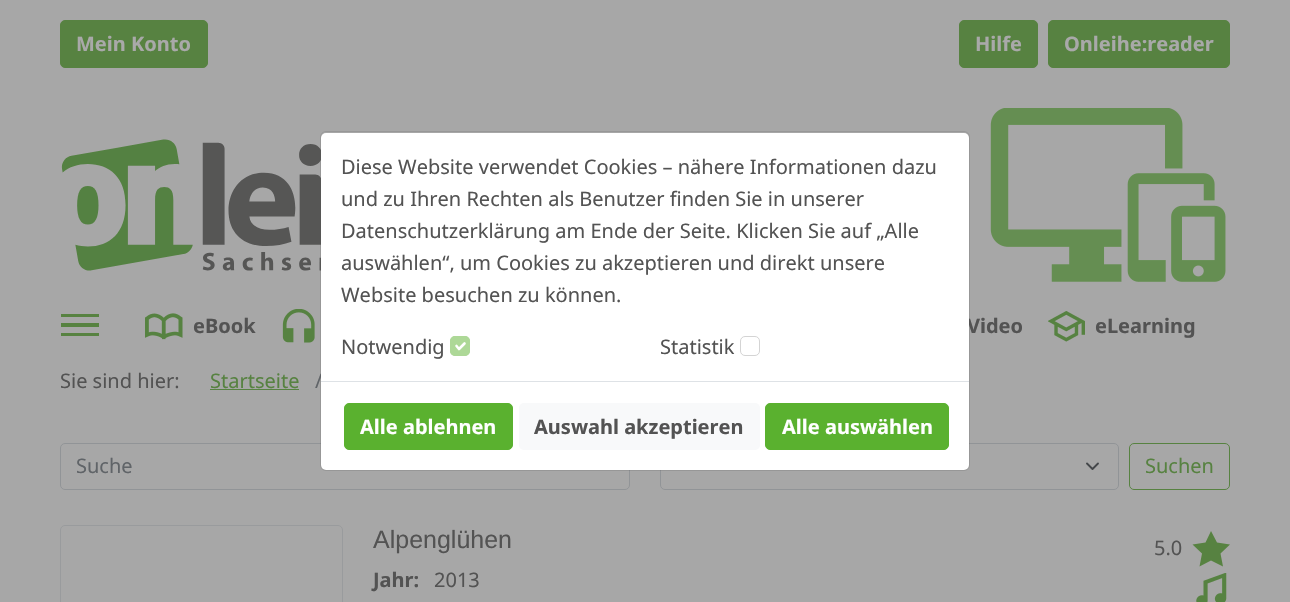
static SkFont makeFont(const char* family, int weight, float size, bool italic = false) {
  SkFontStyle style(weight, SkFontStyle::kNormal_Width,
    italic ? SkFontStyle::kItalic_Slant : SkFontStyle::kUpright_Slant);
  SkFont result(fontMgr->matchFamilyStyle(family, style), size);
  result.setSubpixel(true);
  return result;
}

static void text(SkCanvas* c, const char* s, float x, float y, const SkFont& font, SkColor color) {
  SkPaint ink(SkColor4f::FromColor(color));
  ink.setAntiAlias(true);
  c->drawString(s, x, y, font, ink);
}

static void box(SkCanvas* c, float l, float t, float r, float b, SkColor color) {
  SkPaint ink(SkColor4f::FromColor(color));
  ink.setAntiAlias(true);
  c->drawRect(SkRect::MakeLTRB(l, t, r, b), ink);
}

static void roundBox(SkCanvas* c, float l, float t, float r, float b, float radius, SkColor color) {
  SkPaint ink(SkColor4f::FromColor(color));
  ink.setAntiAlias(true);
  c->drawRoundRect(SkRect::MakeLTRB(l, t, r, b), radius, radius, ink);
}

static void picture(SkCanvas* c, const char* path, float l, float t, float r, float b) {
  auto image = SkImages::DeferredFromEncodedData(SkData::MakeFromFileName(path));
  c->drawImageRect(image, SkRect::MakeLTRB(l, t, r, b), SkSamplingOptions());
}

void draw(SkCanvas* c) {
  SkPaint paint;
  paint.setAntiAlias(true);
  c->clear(0xffa7a7a7);
  paint.setColor(0xff578241);
  c->drawRoundRect(SkRect::MakeLTRB(60.5f, 20.5f, 207.5f, 67.5f), 4.5f, 4.5f, paint);
  paint.setStyle(SkPaint::kStroke_Style);
  paint.setStrokeWidth(1);
  c->drawRoundRect(SkRect::MakeLTRB(60.5f, 20.5f, 207.5f, 67.5f), 4.5f, 4.5f, paint);
  SkFont face1 = makeFont("Noto Sans", 700, 20);
  text(c, "Mein Konto", 76, 51, face1, 0xffa9a9a9);
  paint.setStyle(SkPaint::kFill_Style);
  c->drawRoundRect(SkRect::MakeLTRB(959.5f, 20.5f, 1037.5f, 67.5f), 4.5f, 4.5f, paint);
  paint.setStyle(SkPaint::kStroke_Style);
  c->drawRoundRect(SkRect::MakeLTRB(959.5f, 20.5f, 1037.5f, 67.5f), 4.5f, 4.5f, paint);
  text(c, "Hilfe", 975, 51, face1, 0xffa9a9a9);
  paint.setStyle(SkPaint::kFill_Style);
  c->drawRoundRect(SkRect::MakeLTRB(1048.5f, 20.5f, 1229.5f, 67.5f), 4.5f, 4.5f, paint);
  paint.setStyle(SkPaint::kStroke_Style);
  c->drawRoundRect(SkRect::MakeLTRB(1048.5f, 20.5f, 1229.5f, 67.5f), 4.5f, 4.5f, paint);
  text(c, "Onleihe:reader", 1064, 51, face1, 0xffa9a9a9);
  picture(c, "img_01.png", 61, 139, 321, 271);
  picture(c, "img_02.png", 990, 108, 1226, 282);
  box(c, 61, 314, 99, 317, 0xff578241);
  box(c, 61, 323, 99, 327, 0xff578241);
  box(c, 61, 333, 99, 336, 0xff578241);
  picture(c, "img_03.png", 145, 313, 183, 340);
  text(c, "eBook", 193, 333, face1, 0xff535353);
  picture(c, "img_04.png", 282, 309, 315, 343);
  text(c, "Video", 967, 333, face1, 0xff535353);
  picture(c, "img_05.png", 1048, 311, 1085, 342);
  text(c, "eLearning", 1095, 333, face1, 0xff535353);
  SkFont face2 = makeFont("Noto Sans", 400, 20);
  text(c, "/", 315, 388, face2, 0xff606468);
  paint.setColor(0xff919497);
  c->drawRoundRect(SkRect::MakeLTRB(60.5f, 443.5f, 629.5f, 489.5f), 4.5f, 4.5f, paint);
  paint.setStrokeWidth(1.9f);
  paint.setStrokeCap(SkPaint::kRound_Cap);
  paint.setStrokeJoin(SkPaint::kRound_Join);
  paint.setColor(0xff44474a);
  c->drawPath(SkPathBuilder().moveTo(1087, 463.5f).lineTo(1092.5f, 469).lineTo(1098, 463.5f).detach(), paint);
  paint.setStrokeWidth(1);
  paint.setStrokeCap(SkPaint::kButt_Cap);
  paint.setStrokeJoin(SkPaint::kMiter_Join);
  paint.setColor(0xff919497);
  c->drawRoundRect(SkRect::MakeLTRB(660.5f, 443.5f, 1118.5f, 489.5f), 4.5f, 4.5f, paint);
  roundBox(c, 321, 133, 969, 470, 5, 0xffffffff);
  paint.setColor(0x33535353);
  c->drawRoundRect(SkRect::MakeLTRB(320.5f, 131.5f, 969.5f, 470.5f), 5.5f, 5.5f, paint);
  text(c, "Diese Website verwendet Cookies – nähere Informationen dazu", 341, 174, face2, 0xff535353);
  text(c, "und zu Ihren Rechten als Benutzer finden Sie in unserer", 341, 206, face2, 0xff535353);
  text(c, "Datenschutzerklärung am Ende der Seite. Klicken Sie auf „Alle", 341, 238, face2, 0xff535353);
  text(c, "auswählen“, um Cookies zu akzeptieren und direkt unsere", 341, 270, face2, 0xff535353);
  text(c, "Website besuchen zu können.", 341, 302, face2, 0xff535353);
  text(c, "Notwendig", 341, 354, face2, 0xff535353);
  roundBox(c, 450, 336, 470, 356, 5, 0xffadd897);
  paint.setStrokeWidth(2.6f);
  paint.setStrokeCap(SkPaint::kRound_Cap);
  paint.setStrokeJoin(SkPaint::kRound_Join);
  paint.setColor(0xffffffff);
  c->drawPath(SkPathBuilder().moveTo(456.5f, 346).lineTo(459, 349).lineTo(464.5f, 343.5f).detach(), paint);
  paint.setStrokeWidth(1);
  paint.setStrokeCap(SkPaint::kButt_Cap);
  paint.setStrokeJoin(SkPaint::kMiter_Join);
  paint.setColor(0xffadd897);
  c->drawRoundRect(SkRect::MakeLTRB(450.5f, 336.5f, 469.5f, 355.5f), 4.5f, 4.5f, paint);
  text(c, "Statistik", 660, 354, face2, 0xff535353);
  paint.setColor(0xffd4d4d4);
  c->drawRoundRect(SkRect::MakeLTRB(740.5f, 336.5f, 759.5f, 355.5f), 4.5f, 4.5f, paint);
  box(c, 321, 381, 969, 382, 0xffdee2e6);
  paint.setStyle(SkPaint::kFill_Style);
  paint.setColor(0xff5ab12f);
  c->drawRoundRect(SkRect::MakeLTRB(344.5f, 403.5f, 512.5f, 449.5f), 4.5f, 4.5f, paint);
  paint.setStyle(SkPaint::kStroke_Style);
  c->drawRoundRect(SkRect::MakeLTRB(344.5f, 403.5f, 512.5f, 449.5f), 4.5f, 4.5f, paint);
  text(c, "Alle ablehnen", 360, 434, face1, 0xffffffff);
  roundBox(c, 519, 403, 760, 450, 5, 0xfff8f9fa);
  text(c, "Auswahl akzeptieren", 534, 434, face1, 0xff535353);
  paint.setStyle(SkPaint::kFill_Style);
  c->drawRoundRect(SkRect::MakeLTRB(765.5f, 403.5f, 948.5f, 449.5f), 4.5f, 4.5f, paint);
  paint.setStyle(SkPaint::kStroke_Style);
  c->drawRoundRect(SkRect::MakeLTRB(765.5f, 403.5f, 948.5f, 449.5f), 4.5f, 4.5f, paint);
  text(c, "Alle auswählen", 782, 434, face1, 0xffffffff);
  text(c, "Sie sind hier:", 60, 388, face2, 0xff535353);
  text(c, "Startseite", 210, 388, face2, 0xff578241);
  box(c, 210, 389, 299, 390, 0xff578241);
  text(c, "Suche", 76, 473, face2, 0xff606468);
  paint.setColor(0xff578241);
  c->drawRoundRect(SkRect::MakeLTRB(1129.5f, 443.5f, 1229.5f, 489.5f), 4.5f, 4.5f, paint);
  text(c, "Suchen", 1145, 473, face2, 0xff578241);
  paint.setColor(0xff999b9d);
  c->drawRoundRect(SkRect::MakeLTRB(60.5f, 525.5f, 342.5f, 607.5f), 4.5f, 4.5f, paint);
  SkFont face3 = makeFont("Liberation Sans", 400, 25);
  text(c, "Alpenglühen", 373, 548, face3, 0xff535353);
  text(c, "Jahr:", 373, 587, face1, 0xff535353);
  text(c, "2013", 434, 587, face2, 0xff535353);
  text(c, "5.0", 1154, 555, face2, 0xff535353);
  paint.setStyle(SkPaint::kFill_Style);
  paint.setColor(0xff578241);
  c->drawPath(SkPathBuilder().moveTo(1211, 531).lineTo(1217, 542.5f).lineTo(1230, 544.5f).lineTo(1220.5f, 553.5f).lineTo(1223, 566.5f).lineTo(1211, 560.5f).lineTo(1199.5f, 566.5f).lineTo(1202, 553.5f).lineTo(1192.5f, 544.5f).lineTo(1205.5f, 542.5f).close().detach(), paint);
  picture(c, "img_06.png", 1196, 573, 1227, 602);
}
